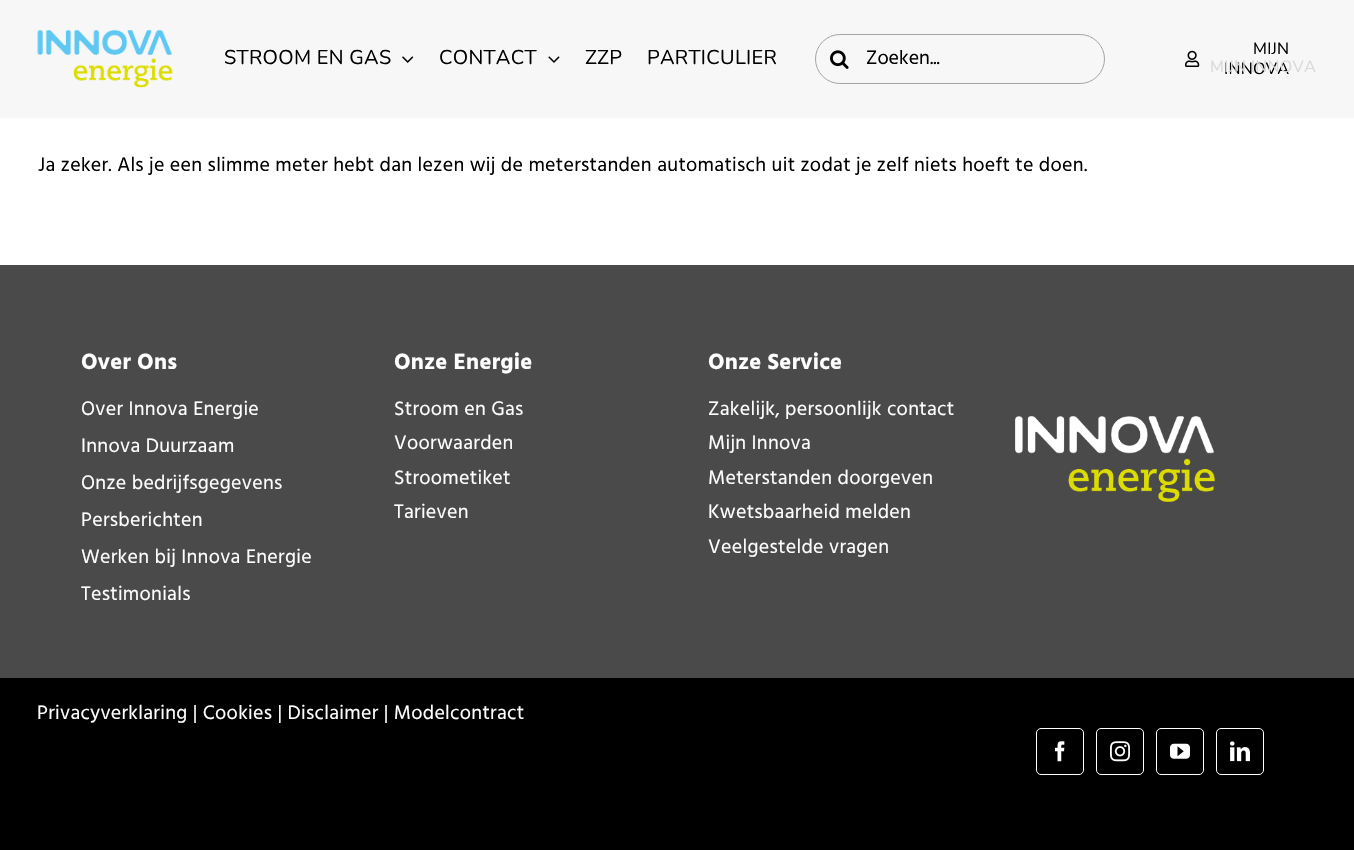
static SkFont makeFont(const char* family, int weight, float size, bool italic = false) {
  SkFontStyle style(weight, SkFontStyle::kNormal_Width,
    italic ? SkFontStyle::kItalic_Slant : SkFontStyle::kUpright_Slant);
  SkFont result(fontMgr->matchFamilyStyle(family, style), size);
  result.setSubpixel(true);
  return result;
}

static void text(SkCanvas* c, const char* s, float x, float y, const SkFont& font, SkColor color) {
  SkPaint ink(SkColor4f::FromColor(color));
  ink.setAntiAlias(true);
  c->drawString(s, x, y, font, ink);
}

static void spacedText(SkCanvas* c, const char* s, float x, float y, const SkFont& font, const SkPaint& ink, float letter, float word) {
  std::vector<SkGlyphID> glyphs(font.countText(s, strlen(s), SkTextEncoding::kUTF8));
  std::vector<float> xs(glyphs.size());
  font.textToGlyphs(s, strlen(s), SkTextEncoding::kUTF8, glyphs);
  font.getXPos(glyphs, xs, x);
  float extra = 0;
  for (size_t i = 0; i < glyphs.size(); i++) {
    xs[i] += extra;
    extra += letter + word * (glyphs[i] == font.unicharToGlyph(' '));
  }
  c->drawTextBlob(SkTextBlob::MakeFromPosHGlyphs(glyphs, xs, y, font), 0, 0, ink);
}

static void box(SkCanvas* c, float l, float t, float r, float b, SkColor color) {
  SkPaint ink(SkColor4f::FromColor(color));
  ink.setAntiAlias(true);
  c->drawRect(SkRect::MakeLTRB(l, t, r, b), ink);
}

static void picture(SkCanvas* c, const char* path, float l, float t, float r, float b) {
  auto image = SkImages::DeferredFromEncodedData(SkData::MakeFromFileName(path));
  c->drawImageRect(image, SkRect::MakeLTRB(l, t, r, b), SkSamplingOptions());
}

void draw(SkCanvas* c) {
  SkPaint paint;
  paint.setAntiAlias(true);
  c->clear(0xffffffff);
  box(c, 0, 0, 1354, 118, 0xfff7f7f7);
  picture(c, "img_01.png", 37, 30, 173, 88);
  SkFont face1 = makeFont("Nunito", 400, 20);
  paint.setColor(0xff000000);
  spacedText(c, "STROOM EN GAS", 224, 64, face1, paint, 0.3f, 0);
  picture(c, "img_02.png", 402, 56, 414, 63);
  spacedText(c, "CONTACT", 439, 64, face1, paint, 0.3f, 0);
  picture(c, "img_03.png", 548, 56, 560, 63);
  spacedText(c, "ZZP", 585, 64, face1, paint, 0.3f, 0);
  spacedText(c, "PARTICULIER", 647, 64, face1, paint, 0.3f, 0);
  paint.setStyle(SkPaint::kStroke_Style);
  paint.setStrokeWidth(1);
  paint.setColor(0xffa4a4a4);
  c->drawRoundRect(SkRect::MakeLTRB(815.5f, 34.5f, 1104.5f, 83.5f), 24.5f, 24.5f, paint);
  picture(c, "img_04.png", 830, 50, 849, 69);
  SkFont face2 = makeFont("Hind", 400, 20);
  text(c, "Zoeken...", 866, 64, face2, 0xff000000);
  picture(c, "img_05.png", 1185, 50, 1200, 67);
  SkFont face3 = makeFont("Nunito", 400, 16.25f);
  paint.setStyle(SkPaint::kFill_Style);
  paint.setColor(0xff000000);
  spacedText(c, "MIJN", 1253, 54, face3, paint, 0.25f, 0);
  spacedText(c, "INNOVA", 1224, 74, face3, paint, 0.25f, 0);
  paint.setColor(0xffd8d8d8);
  spacedText(c, "MIJN INNOVA", 1210, 72, face3, paint, 0.25f, 0);
  paint.setColor(0xff000000);
  spacedText(c, "Ja zeker. Als je een slimme meter hebt dan lezen wij de meterstanden automatisch uit zodat je zelf niets hoeft te doen.", 38, 171, face2, paint, 0.3f, 0);
  box(c, 0, 265, 1354, 678, 0xff4a4a4a);
  SkFont face4 = makeFont("Hind", 700, 22.5f);
  paint.setColor(0xffffffff);
  spacedText(c, "Over Ons", 81, 369, face4, paint, 0.3f, 0);
  spacedText(c, "Over Innova Energie", 81, 415, face2, paint, 0.3f, 0);
  spacedText(c, "Innova Duurzaam", 81, 452, face2, paint, 0.3f, 0);
  spacedText(c, "Onze bedrijfsgegevens", 81, 489, face2, paint, 0.3f, 0);
  spacedText(c, "Persberichten", 81, 526, face2, paint, 0.3f, 0);
  spacedText(c, "Werken bij Innova Energie", 81, 563, face2, paint, 0.3f, 0);
  spacedText(c, "Testimonials", 81, 600, face2, paint, 0.3f, 0);
  spacedText(c, "Onze Energie", 394, 369, face4, paint, 0.3f, 0);
  spacedText(c, "Stroom en Gas", 394, 415, face2, paint, 0.3f, 0);
  spacedText(c, "Voorwaarden", 394, 449, face2, paint, 0.3f, 0);
  spacedText(c, "Stroometiket", 394, 484, face2, paint, 0.3f, 0);
  spacedText(c, "Tarieven", 394, 518, face2, paint, 0.3f, 0);
  spacedText(c, "Onze Service", 708, 369, face4, paint, 0.3f, 0);
  spacedText(c, "Zakelijk, persoonlijk contact", 708, 415, face2, paint, 0.3f, 0);
  spacedText(c, "Mijn Innova", 708, 449, face2, paint, 0.3f, 0);
  spacedText(c, "Meterstanden doorgeven", 708, 484, face2, paint, 0.3f, 0);
  spacedText(c, "Kwetsbaarheid melden", 708, 518, face2, paint, 0.3f, 0);
  spacedText(c, "Veelgestelde vragen", 708, 553, face2, paint, 0.3f, 0);
  picture(c, "img_06.png", 1015, 416, 1215, 502);
  box(c, 0, 678, 1354, 850, 0xff000000);
  spacedText(c, "Privacyverklaring | Cookies | Disclaimer | Modelcontract", 37, 719, face2, paint, 0.3f, 0);
  paint.setStyle(SkPaint::kStroke_Style);
  c->drawRoundRect(SkRect::MakeLTRB(1036.5f, 728.5f, 1083.5f, 774.5f), 4.5f, 4.5f, paint);
  picture(c, "img_07.png", 1055, 741, 1065, 762);
  c->drawRoundRect(SkRect::MakeLTRB(1096.5f, 728.5f, 1143.5f, 774.5f), 4.5f, 4.5f, paint);
  picture(c, "img_08.png", 1110, 741, 1130, 762);
  c->drawRoundRect(SkRect::MakeLTRB(1156.5f, 728.5f, 1203.5f, 774.5f), 4.5f, 4.5f, paint);
  picture(c, "img_09.png", 1170, 743, 1190, 759);
  c->drawRoundRect(SkRect::MakeLTRB(1216.5f, 728.5f, 1263.5f, 774.5f), 4.5f, 4.5f, paint);
  picture(c, "img_10.png", 1230, 741, 1250, 762);
}
